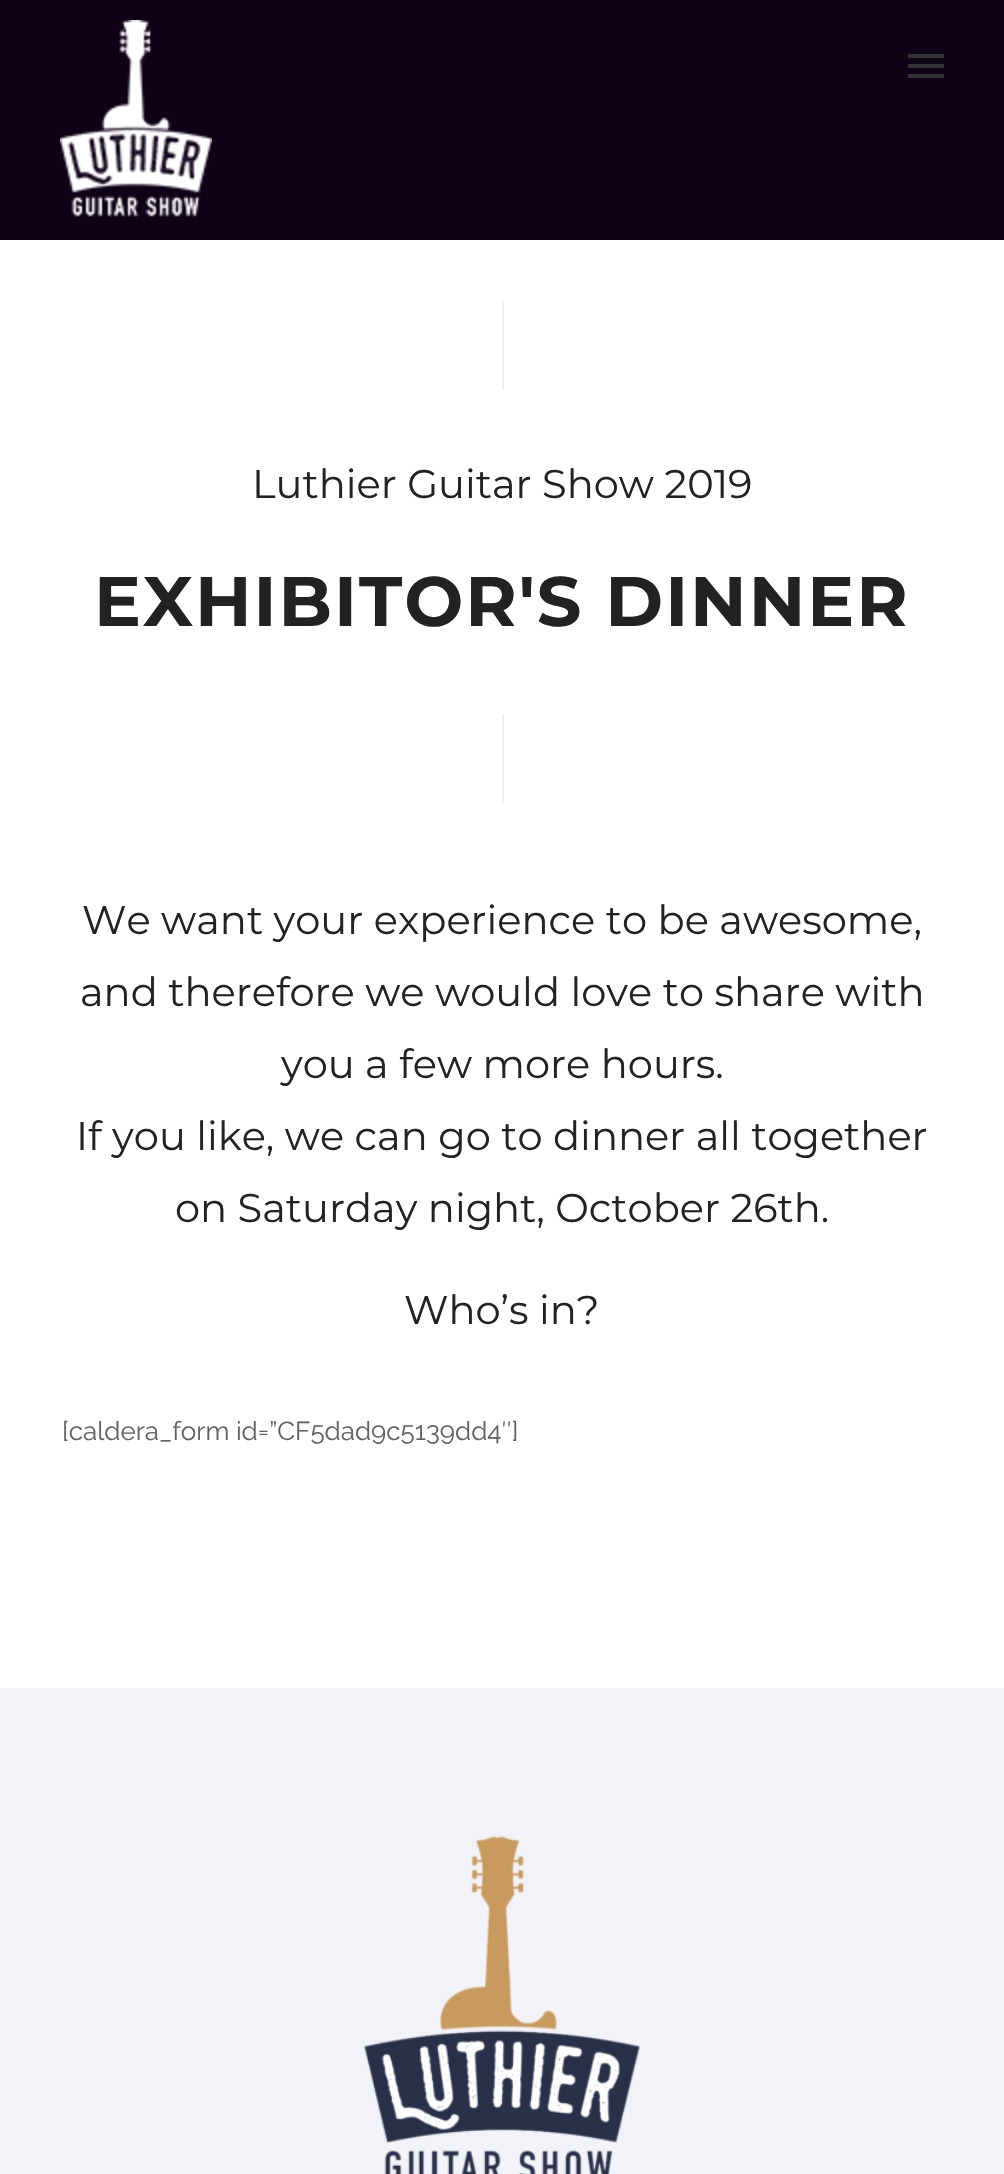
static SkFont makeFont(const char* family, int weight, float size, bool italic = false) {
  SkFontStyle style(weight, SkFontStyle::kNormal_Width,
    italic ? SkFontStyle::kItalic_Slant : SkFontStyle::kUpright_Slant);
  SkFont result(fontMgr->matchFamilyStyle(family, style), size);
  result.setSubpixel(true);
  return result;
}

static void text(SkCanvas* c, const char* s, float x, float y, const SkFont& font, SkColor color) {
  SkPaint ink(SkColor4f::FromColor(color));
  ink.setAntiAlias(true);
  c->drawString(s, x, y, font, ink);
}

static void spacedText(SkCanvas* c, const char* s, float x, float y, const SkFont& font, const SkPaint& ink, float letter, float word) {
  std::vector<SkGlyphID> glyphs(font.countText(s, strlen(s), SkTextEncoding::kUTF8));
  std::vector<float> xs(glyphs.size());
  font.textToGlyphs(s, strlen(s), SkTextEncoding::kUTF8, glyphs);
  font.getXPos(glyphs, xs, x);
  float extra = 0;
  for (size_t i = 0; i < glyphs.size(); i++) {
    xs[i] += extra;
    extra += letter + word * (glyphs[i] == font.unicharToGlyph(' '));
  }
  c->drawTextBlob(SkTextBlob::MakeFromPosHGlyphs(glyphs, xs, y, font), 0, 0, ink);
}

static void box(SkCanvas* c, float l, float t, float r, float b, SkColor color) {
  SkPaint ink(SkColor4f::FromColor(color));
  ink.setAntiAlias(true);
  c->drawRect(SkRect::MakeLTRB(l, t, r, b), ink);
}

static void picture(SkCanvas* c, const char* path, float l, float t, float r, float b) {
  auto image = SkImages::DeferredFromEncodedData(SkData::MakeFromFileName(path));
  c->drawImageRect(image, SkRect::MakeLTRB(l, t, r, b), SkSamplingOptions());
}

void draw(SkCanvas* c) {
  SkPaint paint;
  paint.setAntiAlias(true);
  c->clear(0xffffffff);
  box(c, 0, 0, 1004, 240, 0xff0f0118);
  picture(c, "img_01.png", 60, 20, 212, 217);
  box(c, 908, 54, 944, 58, 0xff323232);
  box(c, 908, 64, 944, 68, 0xff323232);
  box(c, 908, 74, 944, 78, 0xff323232);
  box(c, 502, 300, 504, 390, 0xffefefef);
  SkFont face1 = makeFont("Montserrat", 400, 40);
  text(c, "Luthier Guitar Show 2019", 252, 498, face1, 0xff222222);
  SkFont face2 = makeFont("Montserrat", 700, 70);
  paint.setColor(0xff222222);
  spacedText(c, "EXHIBITOR'S DINNER", 94, 626, face2, paint, 2, 0);
  box(c, 502, 714, 504, 804, 0xffefefef);
  text(c, "We want your experience to be awesome,", 82, 934, face1, 0xff222222);
  text(c, "and therefore we would love to share with", 80, 1006, face1, 0xff222222);
  text(c, "you a few more hours.", 281, 1078, face1, 0xff222222);
  text(c, "If you like, we can go to dinner all together", 76, 1150, face1, 0xff222222);
  text(c, "on Saturday night, October 26th.", 175, 1222, face1, 0xff222222);
  text(c, "Who’s in?", 404, 1324, face1, 0xff222222);
  SkFont face3 = makeFont("Raleway", 400, 26);
  text(c, "[caldera_form id=”CF5dad9c5139dd4″]", 62, 1440, face3, 0xff5f6263);
  box(c, 0, 1688, 1004, 2174, 0xfff2f3f8);
  picture(c, "img_02.png", 364, 1836, 640, 2174);
}
